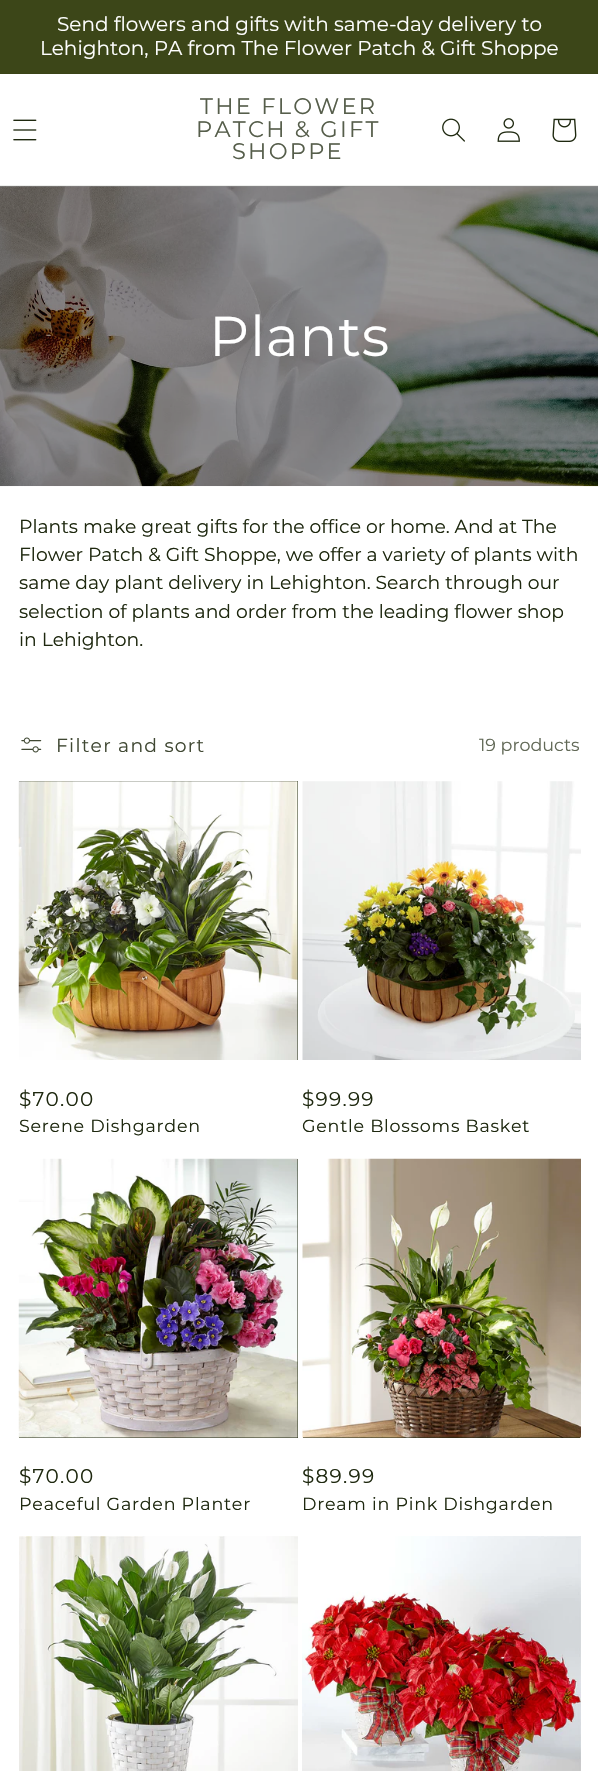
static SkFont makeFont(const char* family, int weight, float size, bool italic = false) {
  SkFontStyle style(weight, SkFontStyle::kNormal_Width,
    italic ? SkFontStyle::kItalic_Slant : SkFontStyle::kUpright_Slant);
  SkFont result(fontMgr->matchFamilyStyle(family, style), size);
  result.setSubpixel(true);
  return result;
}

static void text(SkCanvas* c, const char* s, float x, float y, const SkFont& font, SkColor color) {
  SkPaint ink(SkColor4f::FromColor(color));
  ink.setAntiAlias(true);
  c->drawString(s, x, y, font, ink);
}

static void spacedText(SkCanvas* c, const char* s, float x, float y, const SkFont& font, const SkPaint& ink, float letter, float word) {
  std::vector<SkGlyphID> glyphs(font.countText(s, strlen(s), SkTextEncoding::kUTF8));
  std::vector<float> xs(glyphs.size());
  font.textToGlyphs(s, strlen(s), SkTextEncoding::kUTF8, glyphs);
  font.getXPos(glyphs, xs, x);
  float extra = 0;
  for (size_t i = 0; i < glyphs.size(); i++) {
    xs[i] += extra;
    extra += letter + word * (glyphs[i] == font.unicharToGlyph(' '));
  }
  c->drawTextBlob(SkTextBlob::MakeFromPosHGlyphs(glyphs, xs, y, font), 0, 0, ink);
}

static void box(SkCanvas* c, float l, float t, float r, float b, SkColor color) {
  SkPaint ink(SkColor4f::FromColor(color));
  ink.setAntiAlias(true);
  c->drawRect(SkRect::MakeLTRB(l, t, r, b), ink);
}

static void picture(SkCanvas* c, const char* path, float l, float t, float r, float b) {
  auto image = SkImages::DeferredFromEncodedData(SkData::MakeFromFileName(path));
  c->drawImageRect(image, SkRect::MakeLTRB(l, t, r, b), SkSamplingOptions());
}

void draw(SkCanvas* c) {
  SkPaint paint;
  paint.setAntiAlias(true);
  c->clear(0xffffffff);
  box(c, 0, 0, 598, 73, 0xff3c4618);
  box(c, 0, 73, 598, 74, 0xff3a4417);
  SkFont face1 = makeFont("Montserrat", 400, 20);
  text(c, "Send flowers and gifts with same-day delivery to", 57, 31, face1, 0xffffffff);
  text(c, "Lehighton, PA from The Flower Patch & Gift Shoppe", 40, 55, face1, 0xffffffff);
  box(c, 0, 185, 598, 186, 0xffedeeec);
  picture(c, "img_01.png", 13, 119, 37, 141);
  SkFont face2 = makeFont("Montserrat", 400, 22.5f);
  paint.setColor(0xff565e4b);
  spacedText(c, "THE FLOWER", 200, 114, face2, paint, 2.25f, 0);
  spacedText(c, "PATCH & GIFT", 196, 137, face2, paint, 2.25f, 0);
  spacedText(c, "SHOPPE", 232, 159, face2, paint, 2.25f, 0);
  picture(c, "img_02.png", 442, 118, 465, 142);
  picture(c, "img_03.png", 497, 118, 520, 142);
  picture(c, "img_04.png", 552, 118, 577, 142);
  box(c, 0, 186, 598, 187, 0xff8c8c8b);
  picture(c, "img_05.png", 0, 186, 598, 487);
  SkFont face3 = makeFont("Montserrat", 400, 56);
  paint.setColor(0xffffffff);
  spacedText(c, "Plants", 209, 356, face3, paint, 0.75f, 0);
  SkFont face4 = makeFont("Montserrat", 400, 18.75f);
  text(c, "Plants make great gifts for the office or home. And at The", 19, 533, face4, 0xff1e280f);
  text(c, "Flower Patch & Gift Shoppe, we offer a variety of plants with", 19, 561, face4, 0xff1e280f);
  text(c, "same day plant delivery in Lehighton. Search through our", 19, 589, face4, 0xff1e280f);
  text(c, "selection of plants and order from the leading flower shop", 19, 618, face4, 0xff1e280f);
  text(c, "in Lehighton.", 19, 646, face4, 0xff1e280f);
  picture(c, "img_06.png", 21, 737, 42, 753);
  paint.setColor(0xff404833);
  spacedText(c, "Filter and sort", 56, 752, face4, paint, 1.25f, 0);
  SkFont face5 = makeFont("Montserrat", 400, 17.5f);
  text(c, "19 products", 479, 751, face5, 0xff626957);
  box(c, 19, 781, 298, 1060, 0xff1e280f);
  picture(c, "img_07.png", 18, 781, 298, 1060);
  paint.setColor(0xff1e280f);
  spacedText(c, "$70.00", 19, 1106, face1, paint, 1.25f, 0);
  spacedText(c, "Serene Dishgarden", 19, 1132, face5, paint, 0.75f, 0);
  picture(c, "img_08.png", 302, 781, 581, 1060);
  spacedText(c, "$99.99", 302, 1106, face1, paint, 1.25f, 0);
  spacedText(c, "Gentle Blossoms Basket", 302, 1132, face5, paint, 0.75f, 0);
  box(c, 19, 1159, 298, 1438, 0xff1e280f);
  picture(c, "img_09.png", 18, 1158, 298, 1438);
  spacedText(c, "$70.00", 19, 1483, face1, paint, 1.25f, 0);
  spacedText(c, "Peaceful Garden Planter", 19, 1510, face5, paint, 0.75f, 0);
  box(c, 303, 1437, 580, 1438, 0xff1e280f);
  picture(c, "img_10.png", 302, 1158, 581, 1438);
  spacedText(c, "$89.99", 302, 1483, face1, paint, 1.25f, 0);
  spacedText(c, "Dream in Pink Dishgarden", 302, 1510, face5, paint, 0.75f, 0);
  picture(c, "img_11.png", 19, 1536, 298, 1771);
  picture(c, "img_12.png", 302, 1536, 581, 1771);
}
